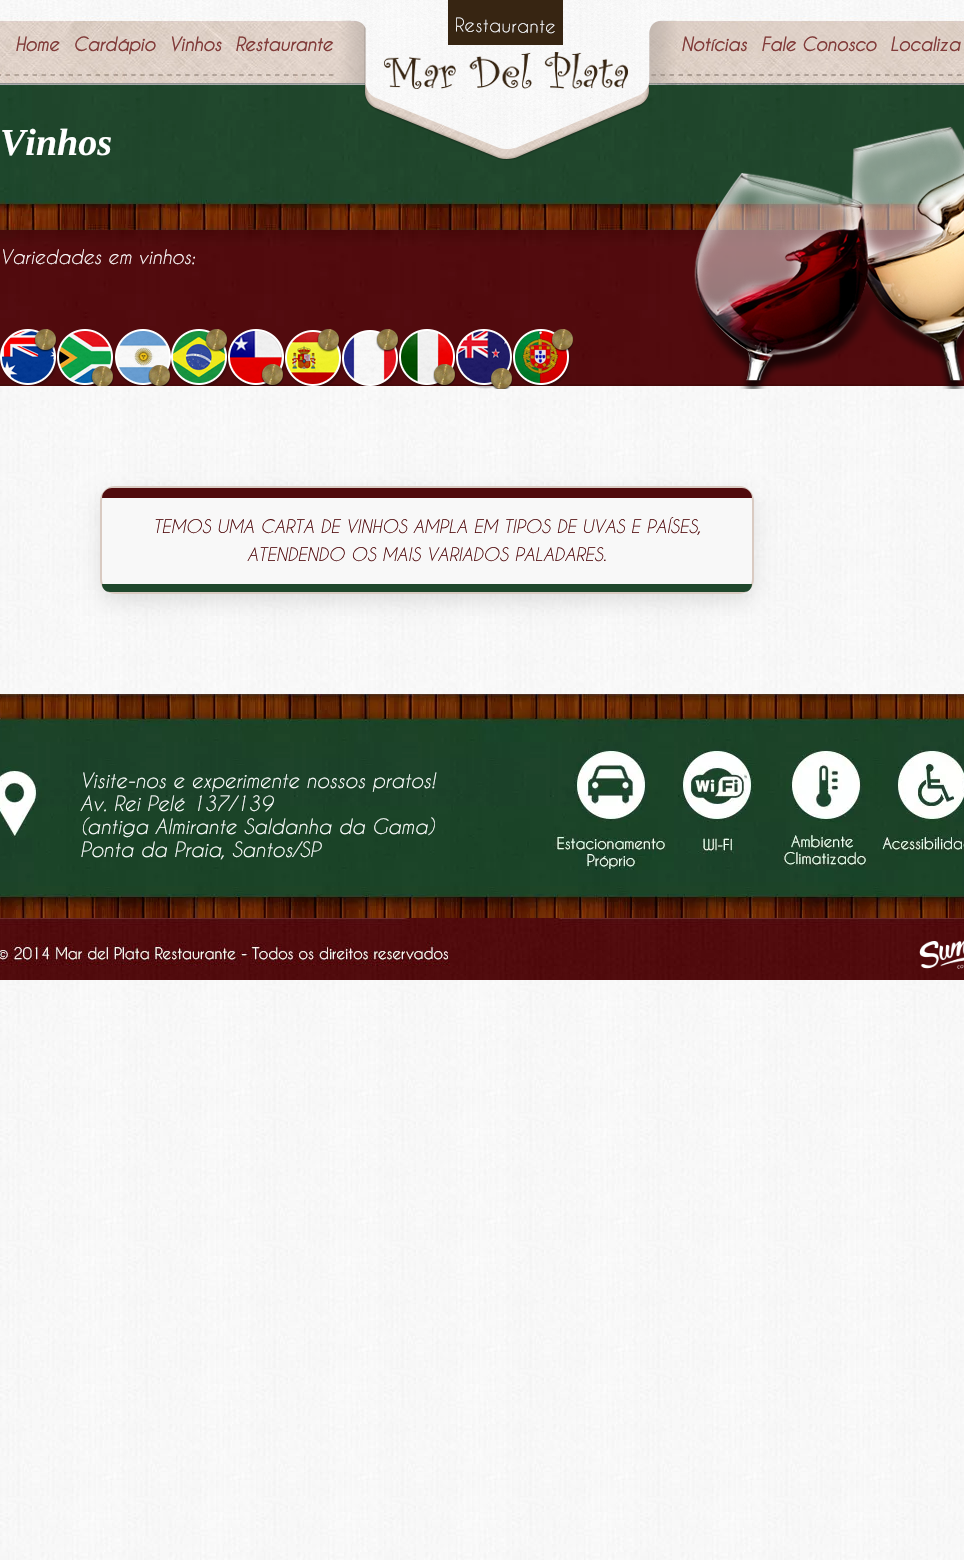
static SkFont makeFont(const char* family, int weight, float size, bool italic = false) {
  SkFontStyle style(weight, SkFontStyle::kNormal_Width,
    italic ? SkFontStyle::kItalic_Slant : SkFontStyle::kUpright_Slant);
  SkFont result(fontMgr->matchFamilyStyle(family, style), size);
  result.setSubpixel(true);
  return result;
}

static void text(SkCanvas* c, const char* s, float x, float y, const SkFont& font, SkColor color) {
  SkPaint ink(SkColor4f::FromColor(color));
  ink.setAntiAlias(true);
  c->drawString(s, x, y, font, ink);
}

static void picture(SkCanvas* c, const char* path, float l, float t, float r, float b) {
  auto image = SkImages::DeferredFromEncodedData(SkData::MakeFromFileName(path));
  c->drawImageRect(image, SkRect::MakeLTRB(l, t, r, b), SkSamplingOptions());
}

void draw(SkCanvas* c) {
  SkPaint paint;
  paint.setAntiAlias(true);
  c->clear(0xffffffff);
  picture(c, "img_01.png", 0, 386, 964, 1560);
  picture(c, "img_02.png", 0, 0, 964, 85);
  SkFont face1 = makeFont("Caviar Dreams", 700, 18, true);
  text(c, "Home", 15, 51, face1, 0xff813b39);
  text(c, "Cardápio", 73, 51, face1, 0xff813b39);
  text(c, "Vinhos", 169, 51, face1, 0xff813b39);
  text(c, "Restaurante", 235, 51, face1, 0xff813b39);
  picture(c, "img_04.png", 0, 85, 964, 230);
  picture(c, "img_03.png", 339, 0, 677, 160);
  text(c, "Notícias", 681, 51, face1, 0xff813b39);
  text(c, "Fale Conosco", 761, 51, face1, 0xff813b39);
  text(c, "Localiza", 890, 51, face1, 0xff813b39);
  SkFont face2 = makeFont("Liberation Serif", 700, 38, true);
  text(c, "Vinhos", 0, 155, face2, 0xffffffff);
  picture(c, "img_05.png", 0, 230, 964, 386);
  SkFont face3 = makeFont("Caviar Dreams", 400, 19, true);
  text(c, "Variedades em vinhos:", 0, 264, face3, 0xffffffff);
  picture(c, "img_06.png", 694, 126, 964, 389);
  picture(c, "img_07.png", 0, 329, 57, 385);
  picture(c, "img_08.png", 57, 329, 114, 386);
  picture(c, "img_09.png", 115, 329, 171, 386);
  picture(c, "img_10.png", 171, 329, 228, 386);
  picture(c, "img_11.png", 228, 329, 285, 386);
  picture(c, "img_12.png", 285, 329, 342, 386);
  picture(c, "img_13.png", 342, 329, 399, 386);
  picture(c, "img_14.png", 399, 329, 456, 386);
  picture(c, "img_15.png", 456, 329, 513, 389);
  picture(c, "img_16.png", 513, 329, 573, 386);
  picture(c, "img_17.png", 0, 486, 963, 594);
  paint.setColor(0x1a000000);
  paint.setMaskFilter(SkMaskFilter::MakeBlur(kNormal_SkBlurStyle, 10));
  c->drawRoundRect(SkRect::MakeLTRB(100, 494, 754, 602), 15, 15, paint);
  paint.setMaskFilter(nullptr);
  paint.setColor(0xfff8f8f8);
  c->drawRoundRect(SkRect::MakeLTRB(101, 487, 753, 593), 14, 14, paint);
  paint.setStyle(SkPaint::kStroke_Style);
  paint.setStrokeWidth(2);
  paint.setColor(0xffd9cac1);
  c->drawRoundRect(SkRect::MakeLTRB(101, 487, 753, 593), 14, 14, paint);
  paint.setStyle(SkPaint::kFill_Style);
  paint.setColor(0xff510b0d);
  c->drawPath(SkPathBuilder().moveTo(112, 488).lineTo(742, 488).cubicTo(747.5f, 488, 752, 492.5f, 752, 498).lineTo(102, 498).cubicTo(102, 492.5f, 106.5f, 488, 112, 488).close().detach(), paint);
  SkFont face4 = makeFont("Caviar Dreams", 400, 17.6f, true);
  text(c, "TEMOS UMA CARTA DE VINHOS AMPLA EM TIPOS DE UVAS E PAÍSES,", 153, 533, face4, 0xff510b0d);
  text(c, "ATENDENDO OS MAIS VARIADOS PALADARES.", 247, 561, face4, 0xff510b0d);
  paint.setColor(0xff1f472c);
  c->drawPath(SkPathBuilder().moveTo(102, 584).lineTo(752, 584).cubicTo(752, 588.5f, 748.5f, 592, 744, 592).lineTo(110, 592).cubicTo(105.5f, 592, 102, 588.5f, 102, 584).close().detach(), paint);
  picture(c, "img_18.png", 0, 694, 964, 918);
  SkFont face5 = makeFont("Caviar Dreams", 400, 20, true);
  text(c, "Visite-nos e experimente nossos pratos!", 80, 788, face5, 0xffffffff);
  text(c, "Av. Rei Pelé 137/139", 80, 811, face5, 0xffffffff);
  text(c, "(antiga Almirante Saldanha da Gama)", 80, 834, face5, 0xffffffff);
  text(c, "Ponta da Praia, Santos/SP", 80, 857, face5, 0xffffffff);
  picture(c, "img_19.png", 0, 918, 964, 980);
  picture(c, "img_20.png", 919, 940, 964, 969);
}
